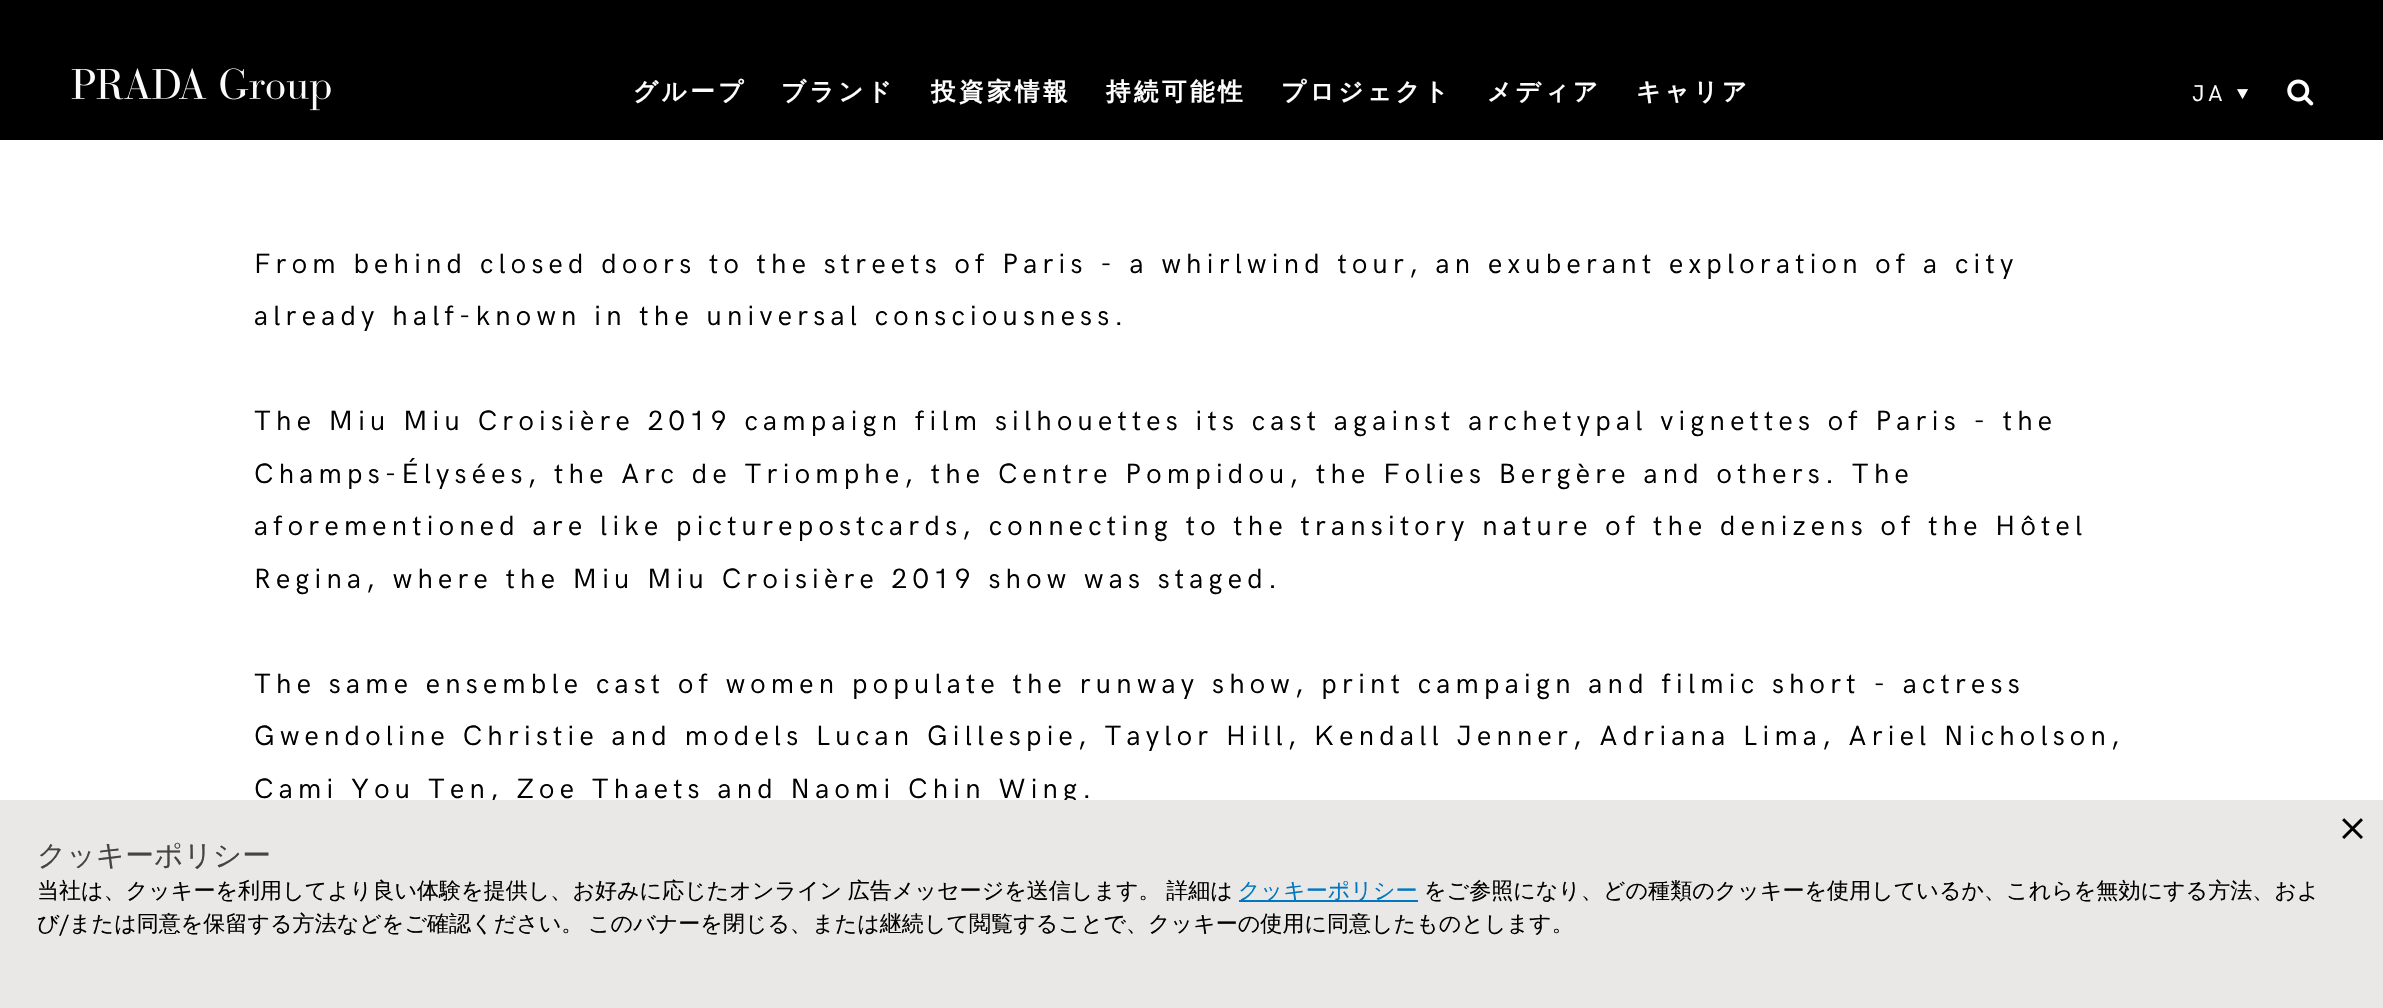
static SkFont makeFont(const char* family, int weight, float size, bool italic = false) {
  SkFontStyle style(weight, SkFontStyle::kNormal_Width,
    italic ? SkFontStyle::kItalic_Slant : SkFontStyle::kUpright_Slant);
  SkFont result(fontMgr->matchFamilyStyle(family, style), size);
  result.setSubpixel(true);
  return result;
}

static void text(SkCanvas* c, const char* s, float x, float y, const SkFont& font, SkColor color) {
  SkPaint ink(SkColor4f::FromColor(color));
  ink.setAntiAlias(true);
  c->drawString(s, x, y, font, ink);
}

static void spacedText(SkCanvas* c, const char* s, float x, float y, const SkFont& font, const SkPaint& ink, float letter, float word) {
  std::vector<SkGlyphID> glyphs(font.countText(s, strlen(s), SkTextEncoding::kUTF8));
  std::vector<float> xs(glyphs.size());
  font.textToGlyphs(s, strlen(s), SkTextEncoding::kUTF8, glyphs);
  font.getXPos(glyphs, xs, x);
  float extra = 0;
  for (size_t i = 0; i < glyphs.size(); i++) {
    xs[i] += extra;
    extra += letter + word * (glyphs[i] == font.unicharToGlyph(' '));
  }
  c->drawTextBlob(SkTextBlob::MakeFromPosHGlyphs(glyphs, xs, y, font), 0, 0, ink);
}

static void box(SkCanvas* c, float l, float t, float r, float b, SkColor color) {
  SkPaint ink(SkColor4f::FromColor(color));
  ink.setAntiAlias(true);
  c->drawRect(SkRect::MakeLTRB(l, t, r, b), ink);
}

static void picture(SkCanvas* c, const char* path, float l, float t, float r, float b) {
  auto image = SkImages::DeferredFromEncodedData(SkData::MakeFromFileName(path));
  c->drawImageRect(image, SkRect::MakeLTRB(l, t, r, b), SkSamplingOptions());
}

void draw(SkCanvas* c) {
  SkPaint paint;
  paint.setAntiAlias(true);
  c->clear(0xffffffff);
  box(c, 0, 0, 2383, 140, 0xff000000);
  picture(c, "img_01.png", 71, 68, 331, 111);
  SkFont face1 = makeFont("WenQuanYi Zen Hei", 700, 24.5f);
  paint.setColor(0xffffffff);
  spacedText(c, "グループ", 633, 100, face1, paint, 3.5f, 0);
  spacedText(c, "ブランド", 781, 100, face1, paint, 3.5f, 0);
  spacedText(c, "投資家情報", 931, 100, face1, paint, 3.5f, 0);
  spacedText(c, "持続可能性", 1106, 100, face1, paint, 3.5f, 0);
  spacedText(c, "プロジェクト", 1281, 100, face1, paint, 3.5f, 0);
  spacedText(c, "メディア", 1487, 100, face1, paint, 3.5f, 0);
  spacedText(c, "キャリア", 1636, 100, face1, paint, 3.5f, 0);
  SkFont face2 = makeFont("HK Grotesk", 400, 23);
  spacedText(c, "JA", 2192, 101, face2, paint, 3.5f, 0);
  picture(c, "img_02.png", 2237, 89, 2248, 99);
  picture(c, "img_03.png", 2287, 79, 2314, 106);
  SkFont face3 = makeFont("HK Grotesk", 400, 28);
  paint.setColor(0xff000000);
  spacedText(c, "From behind closed doors to the streets of Paris - a whirlwind tour, an exuberant exploration of a city", 254, 273, face3, paint, 5.25f, 0);
  spacedText(c, "already half-known in the universal consciousness.", 254, 325, face3, paint, 5.25f, 0);
  spacedText(c, "The Miu Miu Croisière 2019 campaign film silhouettes its cast against archetypal vignettes of Paris - the", 254, 430, face3, paint, 5.25f, 0);
  spacedText(c, "Champs-Élysées, the Arc de Triomphe, the Centre Pompidou, the Folies Bergère and others. The", 254, 483, face3, paint, 5.25f, 0);
  spacedText(c, "aforementioned are like picturepostcards, connecting to the transitory nature of the denizens of the Hôtel", 254, 535, face3, paint, 5.25f, 0);
  spacedText(c, "Regina, where the Miu Miu Croisière 2019 show was staged.", 254, 588, face3, paint, 5.25f, 0);
  spacedText(c, "The same ensemble cast of women populate the runway show, print campaign and filmic short - actress", 254, 693, face3, paint, 5.25f, 0);
  spacedText(c, "Gwendoline Christie and models Lucan Gillespie, Taylor Hill, Kendall Jenner, Adriana Lima, Ariel Nicholson,", 254, 745, face3, paint, 5.25f, 0);
  spacedText(c, "Cami You Ten, Zoe Thaets and Naomi Chin Wing.", 254, 798, face3, paint, 5.25f, 0);
  box(c, 0, 800, 2383, 1008, 0xffe9e8e6);
  picture(c, "img_04.png", 2342, 818, 2363, 839);
  SkFont face4 = makeFont("WenQuanYi Zen Hei", 500, 28.75f);
  text(c, "クッキーポリシー", 37, 865, face4, 0xff444444);
  SkFont face5 = makeFont("WenQuanYi Zen Hei", 500, 22.05f);
  spacedText(c, "当社は、クッキーを利用してより良い体験を提供し、お好みに応じたオンライン 広告メッセージを送信します。 詳細は", 37, 898, face5, paint, 0, -1);
  box(c, 1239, 900, 1418, 902, 0xff0077bf);
  text(c, "クッキーポリシー", 1238, 898, face5, 0xff0077bf);
  text(c, "をご参照になり、どの種類のクッキーを使用しているか、これらを無効にする方法、およ", 1424, 898, face5, 0xff000000);
  text(c, "び", 37, 931, face5, 0xff000000);
  SkFont face6 = makeFont("HK Grotesk", 400, 22.05f);
  text(c, "/", 59, 931, face6, 0xff000000);
  spacedText(c, "または同意を保留する方法などをご確認ください。 このバナーを閉じる、または継続して閲覧することで、クッキーの使用に同意したものとします。", 69, 931, face5, paint, 0, -2);
}
